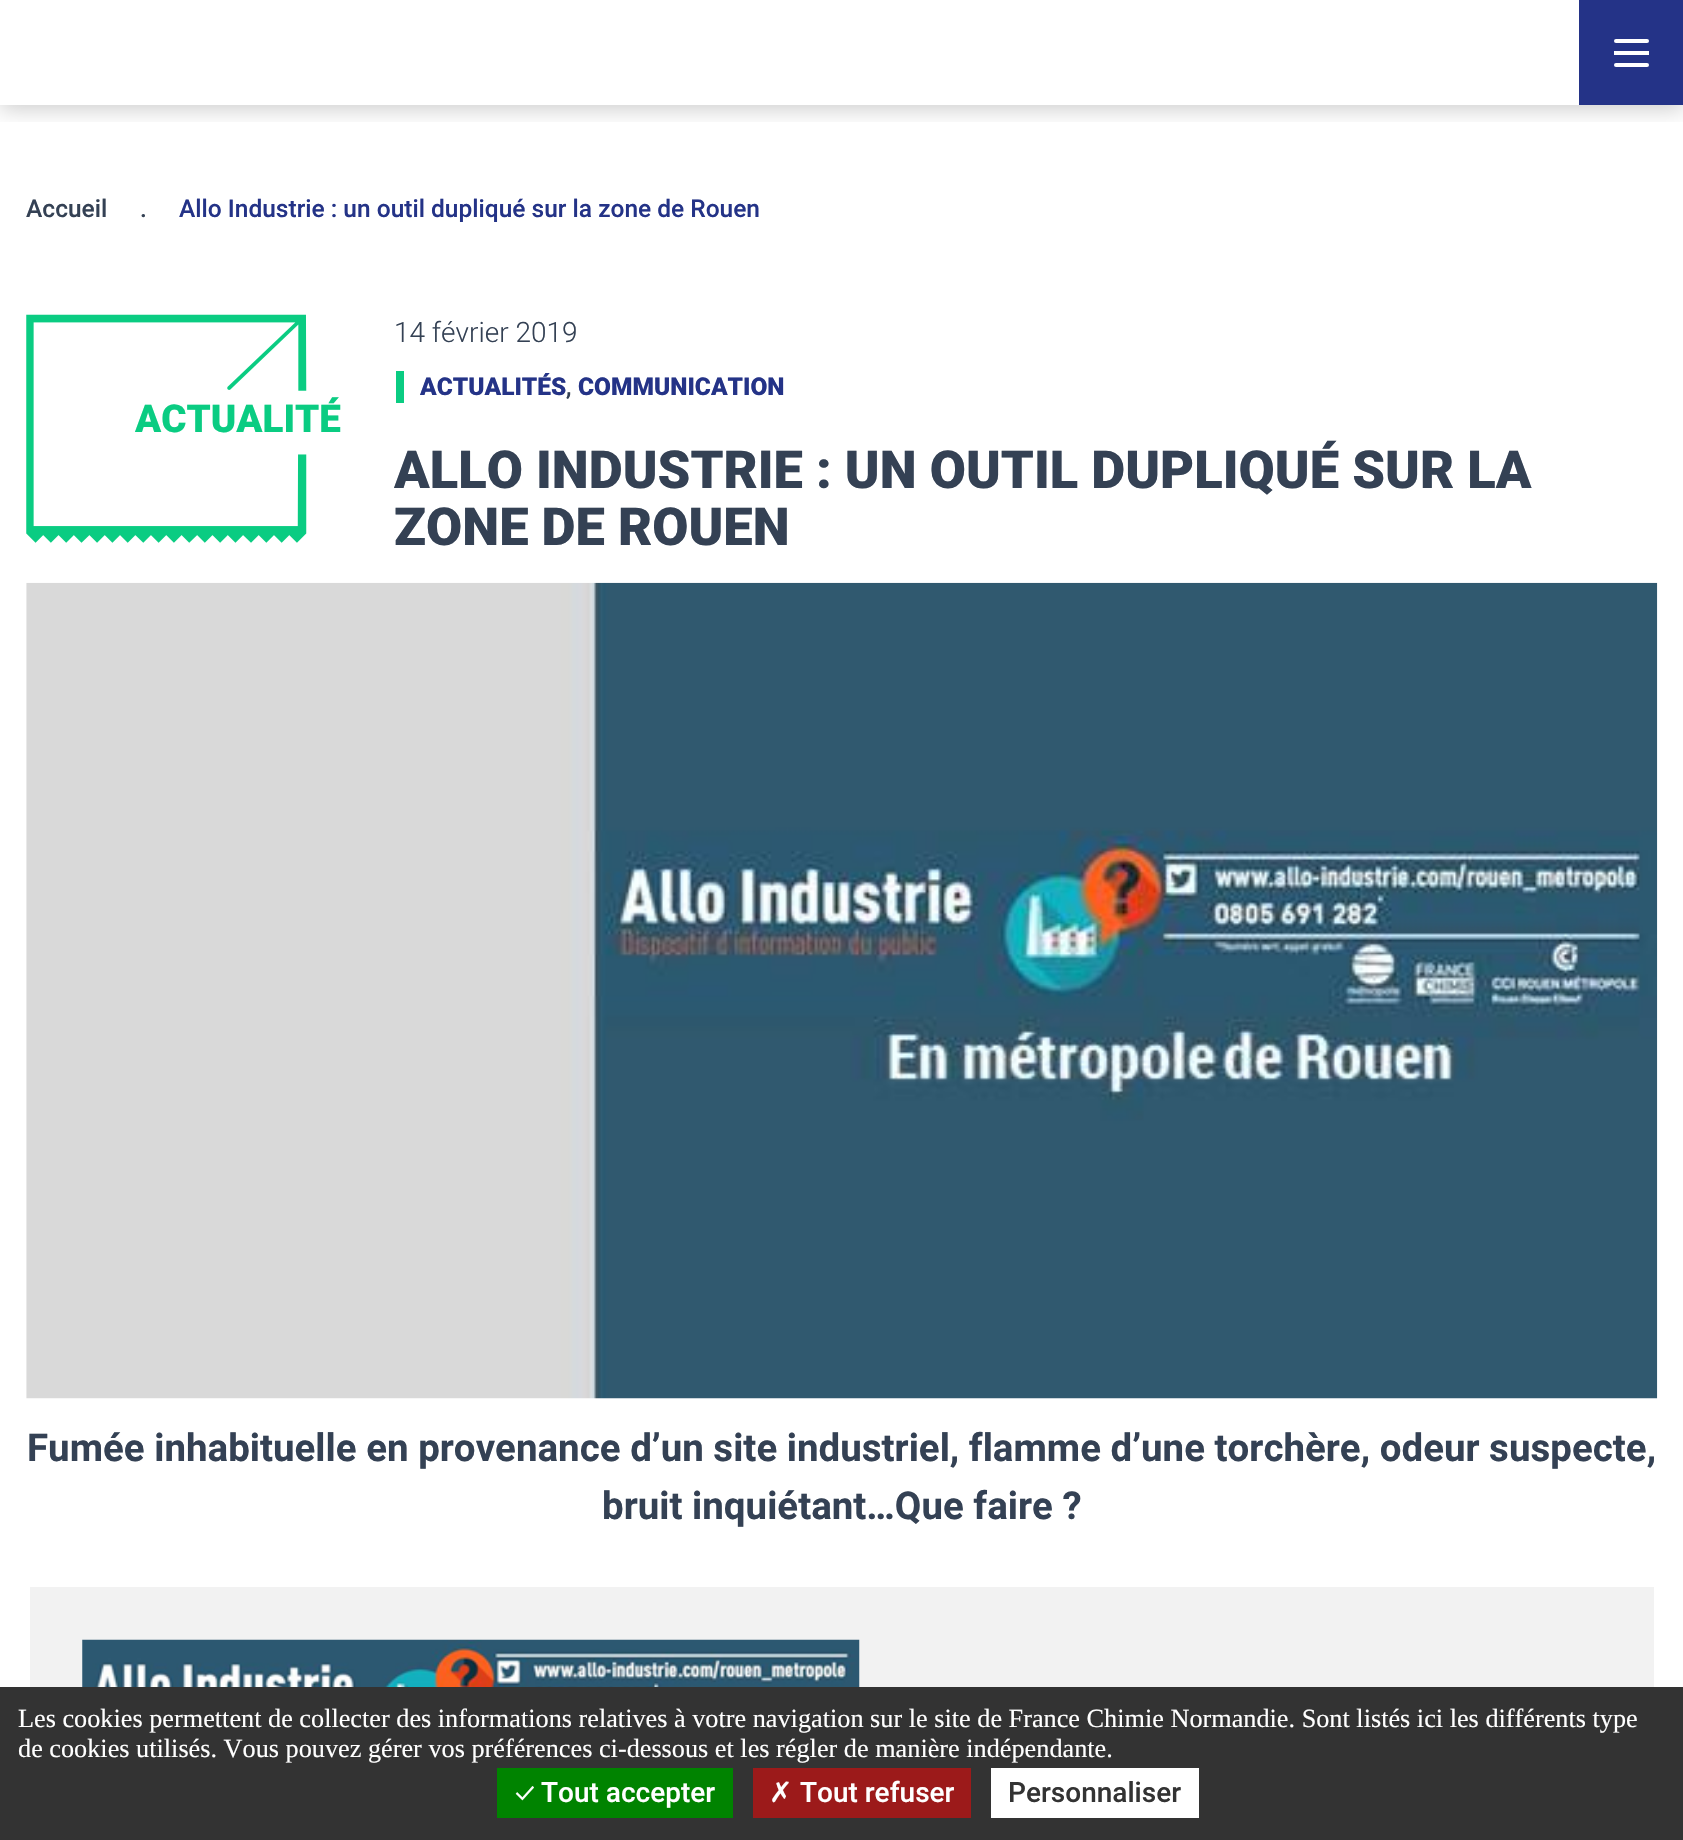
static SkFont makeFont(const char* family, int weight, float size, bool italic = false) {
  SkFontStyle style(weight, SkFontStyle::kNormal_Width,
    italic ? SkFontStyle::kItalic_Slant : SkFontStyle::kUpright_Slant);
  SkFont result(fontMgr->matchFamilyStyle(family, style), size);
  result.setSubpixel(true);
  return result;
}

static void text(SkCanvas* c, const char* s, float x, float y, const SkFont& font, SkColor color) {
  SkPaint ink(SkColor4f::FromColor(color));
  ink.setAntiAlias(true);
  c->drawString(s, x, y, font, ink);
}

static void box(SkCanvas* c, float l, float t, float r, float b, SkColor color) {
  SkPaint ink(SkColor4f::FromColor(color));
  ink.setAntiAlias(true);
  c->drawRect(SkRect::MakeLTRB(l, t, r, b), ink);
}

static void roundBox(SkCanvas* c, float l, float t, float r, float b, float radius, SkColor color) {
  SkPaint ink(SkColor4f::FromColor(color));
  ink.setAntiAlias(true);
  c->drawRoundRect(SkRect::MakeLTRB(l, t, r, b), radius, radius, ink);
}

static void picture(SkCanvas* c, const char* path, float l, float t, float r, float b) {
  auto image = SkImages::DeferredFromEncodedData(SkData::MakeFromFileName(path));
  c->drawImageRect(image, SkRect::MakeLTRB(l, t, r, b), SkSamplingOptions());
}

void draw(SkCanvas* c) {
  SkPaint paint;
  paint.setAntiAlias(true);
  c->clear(0xffffffff);
  c->save();
  c->clipRect(SkRect::MakeLTRB(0, 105, 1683, 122));
  paint.setColor(0x33000000);
  paint.setMaskFilter(SkMaskFilter::MakeBlur(kNormal_SkBlurStyle, 10.5f));
  c->drawRect(SkRect::MakeLTRB(0, 4, 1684, 109), paint);
  paint.setMaskFilter(nullptr);
  c->restore();
  box(c, 1579, 0, 1683, 105, 0xff243387);
  box(c, 1614, 51, 1649, 55, 0xffffffff);
  roundBox(c, 1614, 39, 1649, 43, 2, 0xffffffff);
  roundBox(c, 1614, 63, 1649, 67, 2, 0xffffffff);
  SkFont face1 = makeFont("Roboto", 500, 24.5f);
  text(c, "Accueil", 26, 217, face1, 0xff344154);
  text(c, ".", 140, 217, face1, 0xff344154);
  text(c, "Allo Industrie : un outil dupliqué sur la zone de Rouen", 179, 217, face1, 0xff243387);
  picture(c, "img_01.png", 26, 314, 307, 543);
  SkFont face2 = makeFont("Roboto", 900, 38.5f);
  text(c, "ACTUALITÉ", 135, 432, face2, 0xff0acc82);
  SkFont face3 = makeFont("Roboto", 300, 28);
  text(c, "14 février 2019", 394, 342, face3, 0xff344154);
  box(c, 396, 371, 404, 403, 0xff0acc82);
  SkFont face4 = makeFont("Roboto", 900, 24.5f);
  text(c, "ACTUALITÉS", 420, 395, face4, 0xff243387);
  text(c, ",", 566, 395, face1, 0xff344154);
  text(c, "COMMUNICATION", 578, 395, face4, 0xff243387);
  SkFont face5 = makeFont("Roboto", 900, 52.5f);
  text(c, "ALLO INDUSTRIE : UN OUTIL DUPLIQUÉ SUR LA", 394, 488, face5, 0xff344154);
  text(c, "ZONE DE ROUEN", 394, 545, face5, 0xff344154);
  picture(c, "img_02.png", 26, 582, 1658, 1399);
  SkFont face6 = makeFont("Roboto", 700, 38.5f);
  text(c, "Fumée inhabituelle en provenance d’un site industriel, flamme d’une torchère, odeur suspecte,", 27, 1461, face6, 0xff344154);
  text(c, "bruit inquiétant…Que faire ?", 602, 1519, face6, 0xff344154);
  box(c, 30, 1587, 1654, 1687, 0xfff2f2f2);
  picture(c, "img_03.png", 82, 1639, 860, 1687);
  box(c, 0, 1687, 1683, 1840, 0xff333333);
  SkFont face7 = makeFont("Liberation Serif", 400, 26.25f);
  text(c, "Les cookies permettent de collecter des informations relatives à votre navigation sur le site de France Chimie Normandie. Sont listés ici les différents type", 18, 1727, face7, 0xffffffff);
  text(c, "de cookies utilisés. Vous pouvez gérer vos préférences ci-dessous et les régler de manière indépendante.", 18, 1757, face7, 0xffffffff);
  box(c, 497, 1768, 733, 1818, 0xff008300);
  SkFont face8 = makeFont("Ubuntu", 400, 28);
  text(c, "✓", 515, 1802, face8, 0xffffffff);
  SkFont face9 = makeFont("Roboto", 500, 28);
  text(c, "Tout accepter", 541, 1802, face9, 0xffffffff);
  box(c, 753, 1768, 971, 1818, 0xff9c1a1a);
  SkFont face10 = makeFont("DejaVu Sans", 400, 28);
  text(c, "✗", 769, 1802, face10, 0xffffffff);
  text(c, "Tout refuser", 800, 1802, face9, 0xffffffff);
  box(c, 991, 1768, 1199, 1818, 0xffffffff);
  text(c, "Personnaliser", 1008, 1802, face9, 0xff333333);
}
